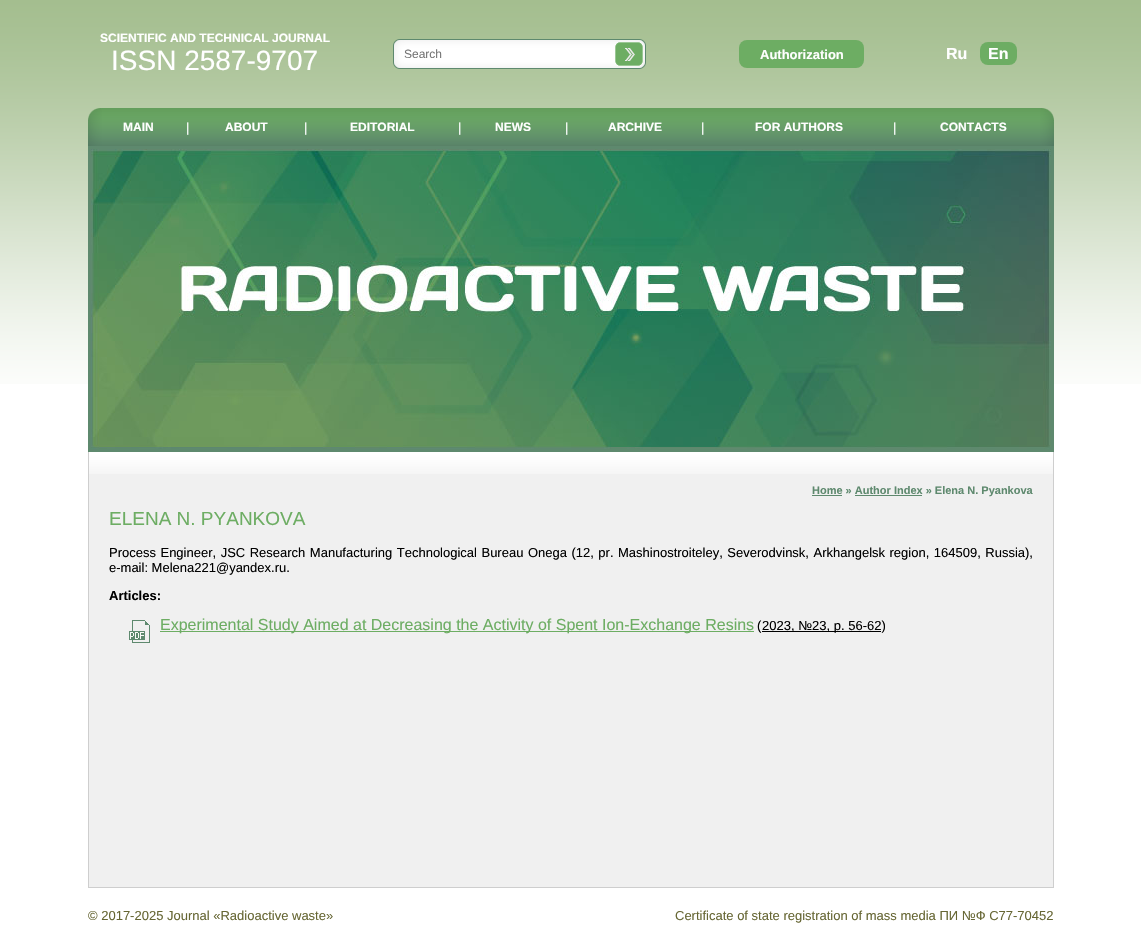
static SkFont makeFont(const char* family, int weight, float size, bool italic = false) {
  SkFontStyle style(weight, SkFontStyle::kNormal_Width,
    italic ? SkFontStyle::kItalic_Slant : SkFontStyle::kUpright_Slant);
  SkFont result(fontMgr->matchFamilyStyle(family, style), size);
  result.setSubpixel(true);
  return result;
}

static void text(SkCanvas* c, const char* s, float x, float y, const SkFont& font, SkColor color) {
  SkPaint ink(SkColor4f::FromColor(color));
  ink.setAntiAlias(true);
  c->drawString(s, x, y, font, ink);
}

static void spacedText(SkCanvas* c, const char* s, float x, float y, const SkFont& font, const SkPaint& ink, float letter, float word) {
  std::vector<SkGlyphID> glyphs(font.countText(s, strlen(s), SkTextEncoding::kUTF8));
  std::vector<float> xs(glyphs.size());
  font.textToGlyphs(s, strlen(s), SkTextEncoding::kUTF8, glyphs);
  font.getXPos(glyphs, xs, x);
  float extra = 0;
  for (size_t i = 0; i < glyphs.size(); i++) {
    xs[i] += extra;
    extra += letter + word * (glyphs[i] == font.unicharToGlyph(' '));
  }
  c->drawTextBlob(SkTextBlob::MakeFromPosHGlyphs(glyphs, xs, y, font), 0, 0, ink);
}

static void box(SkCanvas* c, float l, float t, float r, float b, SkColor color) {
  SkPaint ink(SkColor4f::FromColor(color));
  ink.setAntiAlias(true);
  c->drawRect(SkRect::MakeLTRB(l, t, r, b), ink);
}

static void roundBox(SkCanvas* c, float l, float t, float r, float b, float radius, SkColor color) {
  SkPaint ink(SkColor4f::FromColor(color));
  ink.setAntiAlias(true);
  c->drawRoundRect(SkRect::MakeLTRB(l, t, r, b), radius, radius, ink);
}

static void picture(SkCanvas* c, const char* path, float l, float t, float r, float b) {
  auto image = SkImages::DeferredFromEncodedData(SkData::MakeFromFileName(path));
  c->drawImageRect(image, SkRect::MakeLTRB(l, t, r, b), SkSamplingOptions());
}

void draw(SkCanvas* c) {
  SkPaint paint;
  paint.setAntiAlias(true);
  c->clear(0xffffffff);
  picture(c, "img_01.png", 0, 0, 1141, 384);
  SkFont face1 = makeFont("Liberation Sans", 700, 12);
  text(c, "SCIENTIFIC AND TECHNICAL JOURNAL", 100, 42, face1, 0xffffffff);
  SkFont face2 = makeFont("Liberation Sans", 400, 28);
  text(c, "ISSN 2587-9707", 111, 70, face2, 0xffffffff);
  picture(c, "img_02.png", 393, 39, 646, 69);
  SkFont face3 = makeFont("Liberation Sans", 400, 12);
  text(c, "Search", 404, 58, face3, 0xff757575);
  roundBox(c, 739, 40, 864, 68, 8, 0xff6dad63);
  SkFont face4 = makeFont("Liberation Sans", 700, 13);
  text(c, "Authorization", 760, 59, face4, 0xffffffff);
  SkFont face5 = makeFont("Liberation Sans", 700, 16);
  text(c, "Ru", 946, 59, face5, 0xffffffff);
  roundBox(c, 980, 42, 1017, 65, 8, 0xff6dad63);
  text(c, "En", 988, 59, face5, 0xffffffff);
  picture(c, "img_03.png", 88, 108, 102, 146);
  picture(c, "img_04.png", 102, 108, 1040, 146);
  text(c, "MAIN", 123, 131, face1, 0xffffffff);
  SkFont face6 = makeFont("Liberation Sans", 400, 13);
  text(c, "|", 186, 132, face6, 0xffffffff);
  text(c, "ABOUT", 225, 131, face1, 0xffffffff);
  text(c, "|", 304, 132, face6, 0xffffffff);
  text(c, "EDITORIAL", 350, 131, face1, 0xffffffff);
  text(c, "|", 458, 132, face6, 0xffffffff);
  text(c, "NEWS", 495, 131, face1, 0xffffffff);
  text(c, "|", 565, 132, face6, 0xffffffff);
  text(c, "ARCHIVE", 608, 131, face1, 0xffffffff);
  text(c, "|", 701, 132, face6, 0xffffffff);
  text(c, "FOR AUTHORS", 755, 131, face1, 0xffffffff);
  text(c, "|", 893, 132, face6, 0xffffffff);
  text(c, "CONTACTS", 940, 131, face1, 0xffffffff);
  picture(c, "img_05.png", 1040, 108, 1054, 146);
  paint.setStyle(SkPaint::kStroke_Style);
  paint.setStrokeWidth(3);
  paint.setColor(0xff5e896e);
  c->drawRect(SkRect::MakeLTRB(89.5f, 147.5f, 1052.5f, 450.5f), paint);
  picture(c, "img_06.png", 91, 149, 1051, 449);
  box(c, 89, 474, 1053, 887, 0xfff0f0f0);
  picture(c, "img_07.png", 89, 452, 1053, 474);
  box(c, 1053, 452, 1054, 888, 0xffcecece);
  box(c, 88, 887, 1054, 888, 0xffcecece);
  box(c, 88, 452, 89, 888, 0xffcecece);
  box(c, 812, 495, 842, 496, 0xff5e896e);
  SkFont face7 = makeFont("Liberation Sans", 700, 11);
  text(c, "Home » Author Index » Elena N. Pyankova", 812, 494, face7, 0xff5e896e);
  box(c, 855, 495, 922, 496, 0xff5e896e);
  SkFont face8 = makeFont("Liberation Sans", 400, 19);
  text(c, "ELENA N. PYANKOVA", 109, 525, face8, 0xff6dad63);
  paint.setStyle(SkPaint::kFill_Style);
  paint.setColor(0xff000000);
  spacedText(c, "Process Engineer, JSC Research Manufacturing Technological Bureau Onega (12, pr. Mashinostroiteley, Severodvinsk, Arkhangelsk region, 164509, Russia),", 109, 557, face6, paint, 0, 0.9f);
  text(c, "e-mail: Melena221@yandex.ru.", 109, 572, face6, 0xff000000);
  text(c, "Articles:", 109, 600, face4, 0xff000000);
  picture(c, "img_08.png", 129, 620, 150, 643);
  box(c, 160, 631, 754, 632, 0xff6dad63);
  SkFont face9 = makeFont("Liberation Sans", 400, 16);
  text(c, "Experimental Study Aimed at Decreasing the Activity of Spent Ion-Exchange Resins", 160, 630, face9, 0xff6dad63);
  text(c, "(", 757, 630, face6, 0xff000000);
  box(c, 762, 631, 881, 632, 0xff000000);
  text(c, "2023, №23, p. 56-62)", 762, 630, face6, 0xff000000);
  text(c, "© 2017-2025 Journal «Radioactive waste»", 88, 920, face6, 0xff666633);
  text(c, "Certificate of state registration of mass media ПИ №Ф С77-70452", 675, 920, face6, 0xff666633);
}
